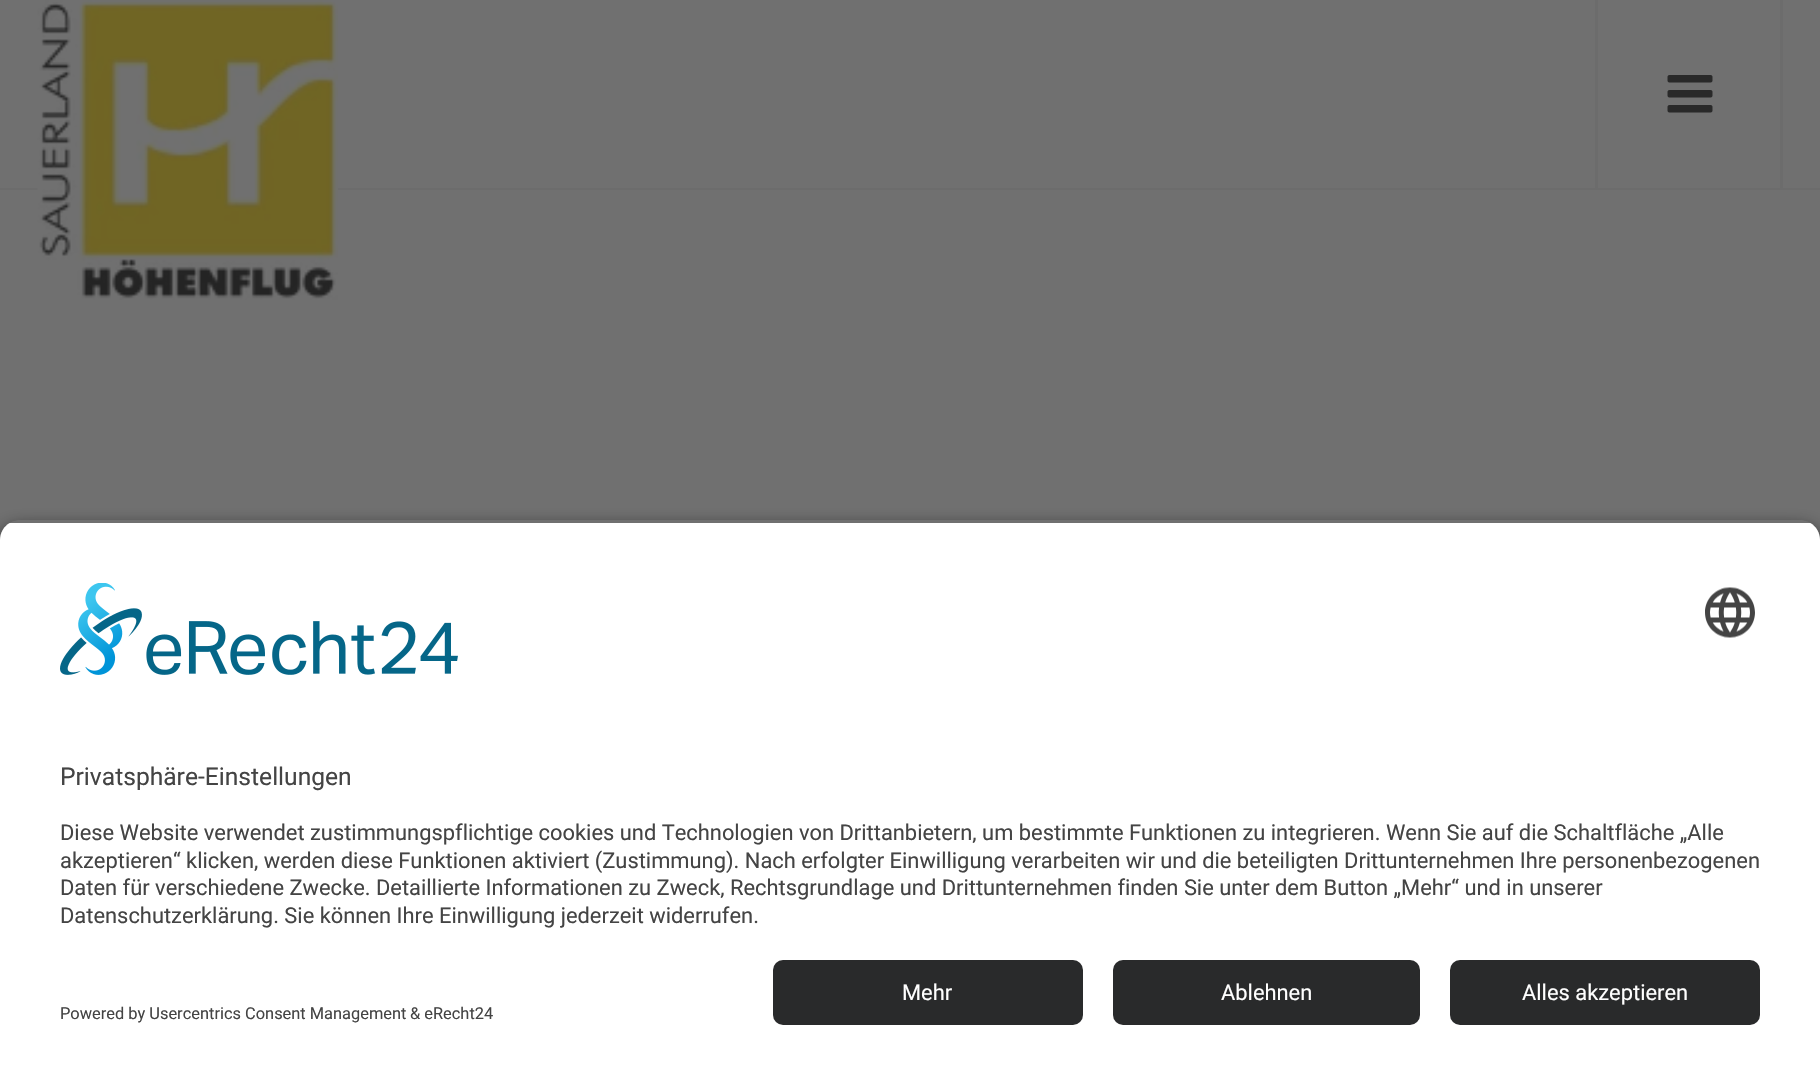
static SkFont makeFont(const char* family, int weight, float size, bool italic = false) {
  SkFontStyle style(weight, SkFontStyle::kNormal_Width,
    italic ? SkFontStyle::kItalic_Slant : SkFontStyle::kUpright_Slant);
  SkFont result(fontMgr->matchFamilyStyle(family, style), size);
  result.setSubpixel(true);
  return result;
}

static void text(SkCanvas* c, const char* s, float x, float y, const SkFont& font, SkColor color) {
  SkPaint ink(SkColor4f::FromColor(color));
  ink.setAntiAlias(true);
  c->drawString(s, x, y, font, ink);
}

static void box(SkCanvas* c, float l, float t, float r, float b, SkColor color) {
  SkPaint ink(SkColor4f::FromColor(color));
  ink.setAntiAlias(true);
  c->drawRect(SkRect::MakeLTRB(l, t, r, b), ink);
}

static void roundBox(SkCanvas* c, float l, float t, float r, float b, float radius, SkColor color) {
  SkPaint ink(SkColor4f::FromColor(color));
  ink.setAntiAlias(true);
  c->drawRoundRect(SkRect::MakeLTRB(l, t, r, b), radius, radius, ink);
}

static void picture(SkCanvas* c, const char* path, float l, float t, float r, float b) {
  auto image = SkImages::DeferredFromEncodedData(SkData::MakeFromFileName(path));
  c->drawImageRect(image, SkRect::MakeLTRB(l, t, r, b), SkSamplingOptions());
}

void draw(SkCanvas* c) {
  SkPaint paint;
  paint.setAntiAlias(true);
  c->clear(0xff707070);
  box(c, 0, 188, 1820, 190, 0xff6c6c6c);
  picture(c, "img_01.png", 37, 0, 338, 300);
  box(c, 1780, 0, 1783, 188, 0xff6c6c6c);
  box(c, 1595, 0, 1598, 188, 0xff6c6c6c);
  picture(c, "img_02.png", 1667, 75, 1713, 113);
  c->save();
  c->clipPath(SkPathBuilder(SkPathFillType::kEvenOdd).moveTo(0, 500).lineTo(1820, 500).lineTo(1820, 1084).lineTo(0, 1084).close().moveTo(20, 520).lineTo(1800, 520).cubicTo(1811, 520, 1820, 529, 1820, 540).lineTo(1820, 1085).lineTo(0, 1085).lineTo(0, 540).cubicTo(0, 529, 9, 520, 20, 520).close().detach(), true);
  paint.setColor(0xcc000000);
  paint.setMaskFilter(SkMaskFilter::MakeBlur(kNormal_SkBlurStyle, 9));
  c->drawRoundRect(SkRect::MakeLTRB(0, 528, 1820, 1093), 20, 20, paint);
  paint.setMaskFilter(nullptr);
  c->restore();
  c->save();
  c->clipPath(SkPathBuilder().moveTo(20, 520).lineTo(1800, 520).cubicTo(1811, 520, 1820, 529, 1820, 540).lineTo(1820, 940).lineTo(0, 940).lineTo(0, 540).cubicTo(0, 529, 9, 520, 20, 520).close().detach(), true);
  box(c, 0, 523, 1820, 940, 0xffffffff);
  c->restore();
  picture(c, "img_03.png", 60, 583, 458, 675);
  picture(c, "img_04.png", 1705, 587, 1755, 638);
  SkFont face1 = makeFont("Roboto", 400, 24.6f);
  text(c, "Privatsphäre-Einstellungen", 60, 785, face1, 0xff444444);
  SkFont face2 = makeFont("Roboto", 400, 21.88f);
  text(c, "Diese Website verwendet zustimmungspflichtige cookies und Technologien von Drittanbietern, um bestimmte Funktionen zu integrieren. Wenn Sie auf die Schaltfläche „Alle", 60, 840, face2, 0xff444444);
  text(c, "akzeptieren“ klicken, werden diese Funktionen aktiviert (Zustimmung). Nach erfolgter Einwilligung verarbeiten wir und die beteiligten Drittunternehmen Ihre personenbezogenen", 60, 868, face2, 0xff444444);
  text(c, "Daten für verschiedene Zwecke. Detaillierte Informationen zu Zweck, Rechtsgrundlage und Drittunternehmen finden Sie unter dem Button „Mehr“ und in unserer", 60, 895, face2, 0xff444444);
  text(c, "Datenschutzerklärung. Sie können Ihre Einwilligung jederzeit widerrufen.", 60, 923, face2, 0xff444444);
  box(c, 0, 940, 1820, 1084, 0xffffffff);
  roundBox(c, 773, 960, 1083, 1025, 10, 0xff292a2b);
  text(c, "Mehr", 902, 1000, face2, 0xffffffff);
  roundBox(c, 1113, 960, 1420, 1025, 10, 0xff292a2b);
  text(c, "Ablehnen", 1221, 1000, face2, 0xffffffff);
  roundBox(c, 1450, 960, 1760, 1025, 10, 0xff292a2b);
  text(c, "Alles akzeptieren", 1522, 1000, face2, 0xffffffff);
  SkFont face3 = makeFont("Roboto", 400, 16.4f);
  text(c, "Powered by Usercentrics Consent Management", 60, 1019, face3, 0xff444444);
  text(c, "& eRecht24", 410, 1019, face3, 0xff444444);
}
